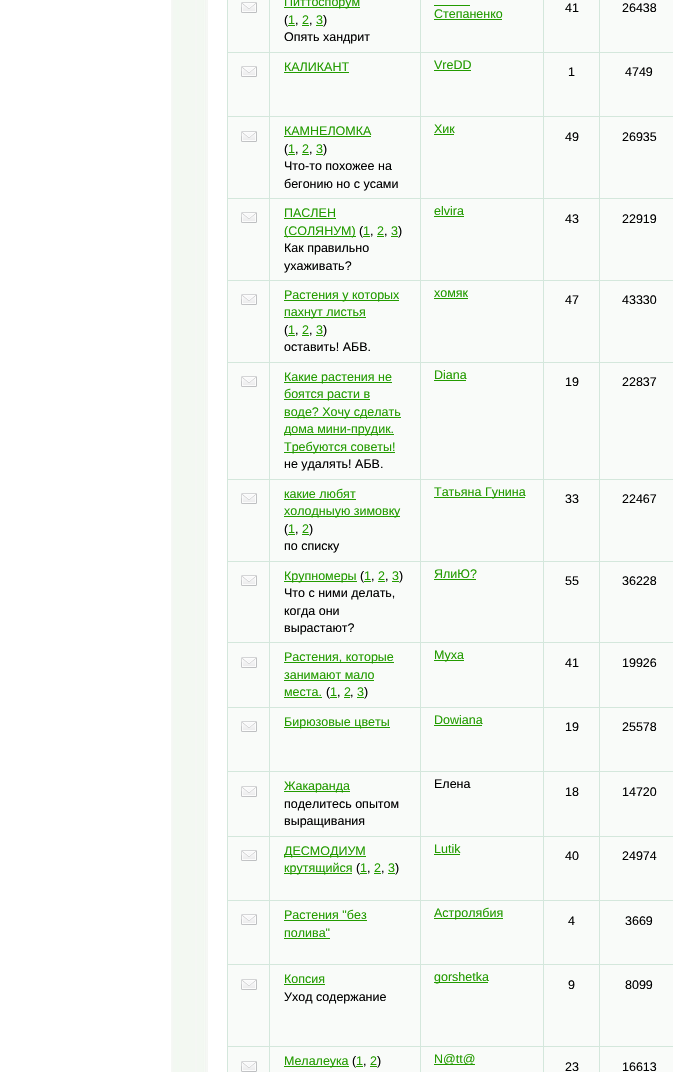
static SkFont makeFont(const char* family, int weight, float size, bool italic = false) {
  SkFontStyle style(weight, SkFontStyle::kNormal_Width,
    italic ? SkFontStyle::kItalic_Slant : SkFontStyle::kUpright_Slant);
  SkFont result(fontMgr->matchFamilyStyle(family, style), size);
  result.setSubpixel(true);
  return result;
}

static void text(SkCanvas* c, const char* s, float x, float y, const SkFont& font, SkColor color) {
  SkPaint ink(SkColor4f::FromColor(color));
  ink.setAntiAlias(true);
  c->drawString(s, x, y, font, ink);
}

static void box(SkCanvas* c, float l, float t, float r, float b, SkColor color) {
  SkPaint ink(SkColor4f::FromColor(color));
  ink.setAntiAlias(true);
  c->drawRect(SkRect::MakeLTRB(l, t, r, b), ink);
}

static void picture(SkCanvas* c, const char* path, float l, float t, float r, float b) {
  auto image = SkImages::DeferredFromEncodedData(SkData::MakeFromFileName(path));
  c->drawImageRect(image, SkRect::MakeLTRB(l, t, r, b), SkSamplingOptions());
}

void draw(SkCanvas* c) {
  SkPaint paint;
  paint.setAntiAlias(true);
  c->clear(0xffffffff);
  picture(c, "img_01.png", 171, 0, 208, 1072);
  box(c, 228, 0, 269, 52, 0xfff9fbf9);
  box(c, 269, 0, 270, 1072, 0xffd4e7dc);
  box(c, 227, 52, 270, 53, 0xffd4e7dc);
  box(c, 227, 0, 228, 53, 0xffd4e7dc);
  picture(c, "img_02.png", 241, 2, 257, 13);
  box(c, 270, 0, 420, 52, 0xfff9fbf9);
  box(c, 420, 0, 421, 1072, 0xffd4e7dc);
  box(c, 270, 52, 421, 53, 0xffd4e7dc);
  box(c, 284, 7, 360, 8, 0xff239b00);
  SkFont face1 = makeFont("Liberation Sans", 400, 12.5f);
  text(c, "Питтоспорум", 284, 6, face1, 0xff239b00);
  text(c, "(", 284, 24, face1, 0xff000000);
  text(c, "1", 288, 24, face1, 0xff239b00);
  text(c, ",", 295, 24, face1, 0xff000000);
  box(c, 288, 25, 295, 26, 0xff239b00);
  text(c, "2", 302, 24, face1, 0xff239b00);
  text(c, ",", 309, 24, face1, 0xff000000);
  box(c, 302, 25, 309, 26, 0xff239b00);
  box(c, 316, 25, 323, 26, 0xff239b00);
  text(c, "3", 316, 24, face1, 0xff239b00);
  text(c, ")", 323, 24, face1, 0xff000000);
  text(c, "Опять хандрит", 284, 41, face1, 0xff000000);
  box(c, 544, 0, 599, 52, 0xfff9fbf9);
  box(c, 599, 0, 600, 1072, 0xffd4e7dc);
  box(c, 544, 52, 673, 53, 0xffd4e7dc);
  text(c, "41", 565, 12, face1, 0xff000000);
  box(c, 600, 0, 673, 52, 0xfff9fbf9);
  text(c, "26438", 622, 12, face1, 0xff000000);
  box(c, 421, 0, 543, 52, 0xfff9fbf9);
  box(c, 543, 0, 544, 1072, 0xffd4e7dc);
  box(c, 421, 52, 544, 53, 0xffd4e7dc);
  text(c, "Степаненко", 434, 18, face1, 0xff239b00);
  box(c, 434, 5, 470, 6, 0xff239b00);
  box(c, 434, 19, 502, 20, 0xff239b00);
  box(c, 228, 53, 269, 116, 0xfff9fbf9);
  box(c, 227, 116, 673, 117, 0xffd4e7dc);
  box(c, 227, 53, 228, 117, 0xffd4e7dc);
  picture(c, "img_02.png", 241, 66, 257, 77);
  box(c, 270, 53, 420, 116, 0xfff9fbf9);
  text(c, "КАЛИКАНТ", 284, 71, face1, 0xff239b00);
  box(c, 284, 72, 349, 73, 0xff239b00);
  box(c, 421, 53, 543, 116, 0xfff9fbf9);
  text(c, "VreDD", 434, 69, face1, 0xff239b00);
  box(c, 434, 70, 471, 71, 0xff239b00);
  box(c, 544, 53, 599, 116, 0xfff9fbf9);
  text(c, "1", 568, 76, face1, 0xff000000);
  box(c, 600, 53, 673, 116, 0xfff9fbf9);
  text(c, "4749", 625, 76, face1, 0xff000000);
  box(c, 228, 117, 269, 198, 0xfff9fbf9);
  box(c, 227, 198, 673, 199, 0xffd4e7dc);
  box(c, 227, 117, 228, 199, 0xffd4e7dc);
  picture(c, "img_02.png", 241, 131, 257, 142);
  box(c, 270, 117, 420, 198, 0xfff9fbf9);
  text(c, "КАМНЕЛОМКА", 284, 135, face1, 0xff239b00);
  box(c, 284, 136, 371, 137, 0xff239b00);
  text(c, "(", 284, 153, face1, 0xff000000);
  text(c, "1", 288, 153, face1, 0xff239b00);
  text(c, ",", 295, 153, face1, 0xff000000);
  box(c, 288, 154, 295, 155, 0xff239b00);
  text(c, "2", 302, 153, face1, 0xff239b00);
  text(c, ",", 309, 153, face1, 0xff000000);
  box(c, 302, 154, 309, 155, 0xff239b00);
  box(c, 316, 154, 323, 155, 0xff239b00);
  text(c, "3", 316, 153, face1, 0xff239b00);
  text(c, ")", 323, 153, face1, 0xff000000);
  text(c, "Что-то похожее на", 284, 170, face1, 0xff000000);
  text(c, "бегонию но с усами", 284, 188, face1, 0xff000000);
  box(c, 421, 117, 543, 198, 0xfff9fbf9);
  text(c, "Хик", 434, 133, face1, 0xff239b00);
  box(c, 434, 134, 454, 135, 0xff239b00);
  box(c, 544, 117, 599, 198, 0xfff9fbf9);
  text(c, "49", 565, 141, face1, 0xff000000);
  box(c, 600, 117, 673, 198, 0xfff9fbf9);
  text(c, "26935", 622, 141, face1, 0xff000000);
  box(c, 228, 199, 269, 280, 0xfff9fbf9);
  box(c, 227, 280, 673, 281, 0xffd4e7dc);
  box(c, 227, 199, 228, 281, 0xffd4e7dc);
  picture(c, "img_02.png", 241, 212, 257, 223);
  box(c, 270, 199, 420, 280, 0xfff9fbf9);
  text(c, "ПАСЛЕН", 284, 217, face1, 0xff239b00);
  box(c, 284, 218, 336, 219, 0xff239b00);
  box(c, 284, 236, 356, 237, 0xff239b00);
  text(c, "(СОЛЯНУМ)", 284, 235, face1, 0xff239b00);
  text(c, "(", 359, 235, face1, 0xff000000);
  text(c, "1", 363, 235, face1, 0xff239b00);
  text(c, ",", 370, 235, face1, 0xff000000);
  box(c, 363, 236, 370, 237, 0xff239b00);
  text(c, "2", 377, 235, face1, 0xff239b00);
  text(c, ",", 384, 235, face1, 0xff000000);
  box(c, 377, 236, 384, 237, 0xff239b00);
  box(c, 391, 236, 398, 237, 0xff239b00);
  text(c, "3", 391, 235, face1, 0xff239b00);
  text(c, ")", 398, 235, face1, 0xff000000);
  text(c, "Как правильно", 284, 252, face1, 0xff000000);
  text(c, "ухаживать?", 284, 270, face1, 0xff000000);
  box(c, 421, 199, 543, 280, 0xfff9fbf9);
  text(c, "elvira", 434, 215, face1, 0xff239b00);
  box(c, 434, 216, 464, 217, 0xff239b00);
  box(c, 544, 199, 599, 280, 0xfff9fbf9);
  text(c, "43", 565, 223, face1, 0xff000000);
  box(c, 600, 199, 673, 280, 0xfff9fbf9);
  text(c, "22919", 622, 223, face1, 0xff000000);
  box(c, 228, 281, 269, 362, 0xfff9fbf9);
  box(c, 227, 362, 673, 363, 0xffd4e7dc);
  box(c, 227, 281, 228, 363, 0xffd4e7dc);
  picture(c, "img_02.png", 241, 294, 257, 305);
  box(c, 270, 281, 420, 362, 0xfff9fbf9);
  box(c, 284, 300, 399, 301, 0xff239b00);
  text(c, "Растения у которых", 284, 299, face1, 0xff239b00);
  box(c, 284, 317, 366, 318, 0xff239b00);
  text(c, "пахнут листья", 284, 316, face1, 0xff239b00);
  text(c, "(", 284, 334, face1, 0xff000000);
  text(c, "1", 288, 334, face1, 0xff239b00);
  text(c, ",", 295, 334, face1, 0xff000000);
  box(c, 288, 335, 295, 336, 0xff239b00);
  text(c, "2", 302, 334, face1, 0xff239b00);
  text(c, ",", 309, 334, face1, 0xff000000);
  box(c, 302, 335, 309, 336, 0xff239b00);
  box(c, 316, 335, 323, 336, 0xff239b00);
  text(c, "3", 316, 334, face1, 0xff239b00);
  text(c, ")", 323, 334, face1, 0xff000000);
  text(c, "оставить! АБВ.", 284, 351, face1, 0xff000000);
  box(c, 421, 281, 543, 362, 0xfff9fbf9);
  text(c, "хомяк", 434, 297, face1, 0xff239b00);
  box(c, 434, 298, 468, 299, 0xff239b00);
  box(c, 544, 281, 599, 362, 0xfff9fbf9);
  text(c, "47", 565, 304, face1, 0xff000000);
  box(c, 600, 281, 673, 362, 0xfff9fbf9);
  text(c, "43330", 622, 304, face1, 0xff000000);
  box(c, 228, 363, 269, 479, 0xfff9fbf9);
  box(c, 227, 479, 673, 480, 0xffd4e7dc);
  box(c, 227, 363, 228, 480, 0xffd4e7dc);
  picture(c, "img_02.png", 241, 376, 257, 387);
  box(c, 270, 363, 420, 479, 0xfff9fbf9);
  box(c, 284, 382, 392, 383, 0xff239b00);
  text(c, "Какие растения не", 284, 381, face1, 0xff239b00);
  box(c, 284, 399, 370, 400, 0xff239b00);
  text(c, "боятся расти в", 284, 398, face1, 0xff239b00);
  box(c, 284, 417, 401, 418, 0xff239b00);
  text(c, "воде? Хочу сделать", 284, 416, face1, 0xff239b00);
  box(c, 284, 434, 394, 435, 0xff239b00);
  text(c, "дома мини-прудик.", 284, 433, face1, 0xff239b00);
  box(c, 284, 452, 395, 453, 0xff239b00);
  text(c, "Требуются советы!", 284, 451, face1, 0xff239b00);
  text(c, "не удалять! АБВ.", 284, 468, face1, 0xff000000);
  box(c, 421, 363, 543, 479, 0xfff9fbf9);
  text(c, "Diana", 434, 379, face1, 0xff239b00);
  box(c, 434, 380, 466, 381, 0xff239b00);
  box(c, 544, 363, 599, 479, 0xfff9fbf9);
  text(c, "19", 565, 386, face1, 0xff000000);
  box(c, 600, 363, 673, 479, 0xfff9fbf9);
  text(c, "22837", 622, 386, face1, 0xff000000);
  box(c, 228, 480, 269, 561, 0xfff9fbf9);
  box(c, 227, 561, 673, 562, 0xffd4e7dc);
  box(c, 227, 480, 228, 562, 0xffd4e7dc);
  picture(c, "img_02.png", 241, 493, 257, 504);
  box(c, 270, 480, 420, 561, 0xfff9fbf9);
  text(c, "какие любят", 284, 498, face1, 0xff239b00);
  box(c, 284, 499, 356, 500, 0xff239b00);
  box(c, 284, 516, 400, 517, 0xff239b00);
  text(c, "холодныую зимовку", 284, 515, face1, 0xff239b00);
  text(c, "(", 284, 533, face1, 0xff000000);
  text(c, "1", 288, 533, face1, 0xff239b00);
  text(c, ",", 295, 533, face1, 0xff000000);
  box(c, 288, 534, 295, 535, 0xff239b00);
  box(c, 302, 534, 309, 535, 0xff239b00);
  text(c, "2", 302, 533, face1, 0xff239b00);
  text(c, ")", 309, 533, face1, 0xff000000);
  text(c, "по списку", 284, 550, face1, 0xff000000);
  box(c, 421, 480, 543, 561, 0xfff9fbf9);
  box(c, 434, 497, 525, 498, 0xff239b00);
  text(c, "Татьяна Гунина", 434, 496, face1, 0xff239b00);
  box(c, 544, 480, 599, 561, 0xfff9fbf9);
  text(c, "33", 565, 503, face1, 0xff000000);
  box(c, 600, 480, 673, 561, 0xfff9fbf9);
  text(c, "22467", 622, 503, face1, 0xff000000);
  box(c, 228, 562, 269, 642, 0xfff9fbf9);
  box(c, 227, 642, 673, 643, 0xffd4e7dc);
  box(c, 227, 562, 228, 643, 0xffd4e7dc);
  picture(c, "img_02.png", 241, 575, 257, 586);
  box(c, 270, 562, 420, 642, 0xfff9fbf9);
  box(c, 284, 581, 357, 582, 0xff239b00);
  text(c, "Крупномеры", 284, 580, face1, 0xff239b00);
  text(c, "(", 360, 580, face1, 0xff000000);
  text(c, "1", 364, 580, face1, 0xff239b00);
  text(c, ",", 371, 580, face1, 0xff000000);
  box(c, 364, 581, 371, 582, 0xff239b00);
  text(c, "2", 378, 580, face1, 0xff239b00);
  text(c, ",", 385, 580, face1, 0xff000000);
  box(c, 378, 581, 385, 582, 0xff239b00);
  box(c, 392, 581, 399, 582, 0xff239b00);
  text(c, "3", 392, 580, face1, 0xff239b00);
  text(c, ")", 399, 580, face1, 0xff000000);
  text(c, "Что с ними делать,", 284, 597, face1, 0xff000000);
  text(c, "когда они", 284, 615, face1, 0xff000000);
  text(c, "вырастают?", 284, 632, face1, 0xff000000);
  box(c, 421, 562, 543, 642, 0xfff9fbf9);
  text(c, "ЯлиЮ?", 434, 578, face1, 0xff239b00);
  box(c, 434, 579, 476, 580, 0xff239b00);
  box(c, 544, 562, 599, 642, 0xfff9fbf9);
  text(c, "55", 565, 585, face1, 0xff000000);
  box(c, 600, 562, 673, 642, 0xfff9fbf9);
  text(c, "36228", 622, 585, face1, 0xff000000);
  box(c, 228, 643, 269, 707, 0xfff9fbf9);
  box(c, 227, 707, 673, 708, 0xffd4e7dc);
  box(c, 227, 643, 228, 708, 0xffd4e7dc);
  picture(c, "img_02.png", 241, 657, 257, 668);
  box(c, 270, 643, 420, 707, 0xfff9fbf9);
  box(c, 284, 662, 394, 663, 0xff239b00);
  text(c, "Растения, которые", 284, 661, face1, 0xff239b00);
  text(c, "занимают мало", 284, 679, face1, 0xff239b00);
  box(c, 284, 680, 374, 681, 0xff239b00);
  text(c, "места.", 284, 696, face1, 0xff239b00);
  box(c, 284, 697, 322, 698, 0xff239b00);
  text(c, "(", 326, 696, face1, 0xff000000);
  text(c, "1", 330, 696, face1, 0xff239b00);
  text(c, ",", 337, 696, face1, 0xff000000);
  box(c, 330, 697, 337, 698, 0xff239b00);
  text(c, "2", 344, 696, face1, 0xff239b00);
  text(c, ",", 350, 696, face1, 0xff000000);
  box(c, 344, 697, 350, 698, 0xff239b00);
  box(c, 357, 697, 364, 698, 0xff239b00);
  text(c, "3", 357, 696, face1, 0xff239b00);
  text(c, ")", 364, 696, face1, 0xff000000);
  box(c, 421, 643, 543, 707, 0xfff9fbf9);
  box(c, 434, 660, 464, 661, 0xff239b00);
  text(c, "Myxa", 434, 659, face1, 0xff239b00);
  box(c, 544, 643, 599, 707, 0xfff9fbf9);
  text(c, "41", 565, 667, face1, 0xff000000);
  box(c, 600, 643, 673, 707, 0xfff9fbf9);
  text(c, "19926", 622, 667, face1, 0xff000000);
  box(c, 228, 708, 269, 771, 0xfff9fbf9);
  box(c, 227, 771, 673, 772, 0xffd4e7dc);
  box(c, 227, 708, 228, 772, 0xffd4e7dc);
  picture(c, "img_02.png", 241, 721, 257, 732);
  box(c, 270, 708, 420, 771, 0xfff9fbf9);
  box(c, 284, 727, 390, 728, 0xff239b00);
  text(c, "Бирюзовые цветы", 284, 726, face1, 0xff239b00);
  box(c, 421, 708, 543, 771, 0xfff9fbf9);
  text(c, "Dowiana", 434, 724, face1, 0xff239b00);
  box(c, 434, 725, 482, 726, 0xff239b00);
  box(c, 544, 708, 599, 771, 0xfff9fbf9);
  text(c, "19", 565, 731, face1, 0xff000000);
  box(c, 600, 708, 673, 771, 0xfff9fbf9);
  text(c, "25578", 622, 731, face1, 0xff000000);
  box(c, 228, 772, 269, 836, 0xfff9fbf9);
  box(c, 227, 836, 673, 837, 0xffd4e7dc);
  box(c, 227, 772, 228, 837, 0xffd4e7dc);
  picture(c, "img_02.png", 241, 786, 257, 797);
  box(c, 270, 772, 420, 836, 0xfff9fbf9);
  box(c, 284, 791, 350, 792, 0xff239b00);
  text(c, "Жакаранда", 284, 790, face1, 0xff239b00);
  text(c, "поделитесь опытом", 284, 808, face1, 0xff000000);
  text(c, "выращивания", 284, 825, face1, 0xff000000);
  box(c, 421, 772, 543, 836, 0xfff9fbf9);
  text(c, "Елена", 434, 788, face1, 0xff000000);
  box(c, 544, 772, 599, 836, 0xfff9fbf9);
  text(c, "18", 565, 796, face1, 0xff000000);
  box(c, 600, 772, 673, 836, 0xfff9fbf9);
  text(c, "14720", 622, 796, face1, 0xff000000);
  box(c, 228, 837, 269, 900, 0xfff9fbf9);
  box(c, 227, 900, 673, 901, 0xffd4e7dc);
  box(c, 227, 837, 228, 901, 0xffd4e7dc);
  picture(c, "img_02.png", 241, 850, 257, 861);
  box(c, 270, 837, 420, 900, 0xfff9fbf9);
  box(c, 284, 856, 366, 857, 0xff239b00);
  text(c, "ДЕСМОДИУМ", 284, 855, face1, 0xff239b00);
  box(c, 284, 873, 352, 874, 0xff239b00);
  text(c, "крутящийся", 284, 872, face1, 0xff239b00);
  text(c, "(", 356, 872, face1, 0xff000000);
  text(c, "1", 360, 872, face1, 0xff239b00);
  text(c, ",", 367, 872, face1, 0xff000000);
  box(c, 360, 873, 367, 874, 0xff239b00);
  text(c, "2", 374, 872, face1, 0xff239b00);
  text(c, ",", 381, 872, face1, 0xff000000);
  box(c, 374, 873, 381, 874, 0xff239b00);
  box(c, 388, 873, 395, 874, 0xff239b00);
  text(c, "3", 388, 872, face1, 0xff239b00);
  text(c, ")", 395, 872, face1, 0xff000000);
  box(c, 421, 837, 543, 900, 0xfff9fbf9);
  text(c, "Lutik", 434, 853, face1, 0xff239b00);
  box(c, 434, 854, 460, 855, 0xff239b00);
  box(c, 544, 837, 599, 900, 0xfff9fbf9);
  text(c, "40", 565, 860, face1, 0xff000000);
  box(c, 600, 837, 673, 900, 0xfff9fbf9);
  text(c, "24974", 622, 860, face1, 0xff000000);
  box(c, 228, 901, 269, 964, 0xfff9fbf9);
  box(c, 227, 964, 673, 965, 0xffd4e7dc);
  box(c, 227, 901, 228, 965, 0xffd4e7dc);
  picture(c, "img_02.png", 241, 914, 257, 925);
  box(c, 270, 901, 420, 964, 0xfff9fbf9);
  text(c, "Растения \"без", 284, 919, face1, 0xff239b00);
  box(c, 284, 920, 367, 921, 0xff239b00);
  text(c, "полива\"", 284, 937, face1, 0xff239b00);
  box(c, 284, 938, 330, 939, 0xff239b00);
  box(c, 421, 901, 543, 964, 0xfff9fbf9);
  box(c, 434, 918, 503, 919, 0xff239b00);
  text(c, "Астролябия", 434, 917, face1, 0xff239b00);
  box(c, 544, 901, 599, 964, 0xfff9fbf9);
  text(c, "4", 568, 925, face1, 0xff000000);
  box(c, 600, 901, 673, 964, 0xfff9fbf9);
  text(c, "3669", 625, 925, face1, 0xff000000);
  box(c, 228, 965, 269, 1046, 0xfff9fbf9);
  box(c, 227, 1046, 673, 1047, 0xffd4e7dc);
  box(c, 227, 965, 228, 1072, 0xffd4e7dc);
  picture(c, "img_02.png", 241, 979, 257, 990);
  box(c, 270, 965, 420, 1046, 0xfff9fbf9);
  text(c, "Копсия", 284, 983, face1, 0xff239b00);
  box(c, 284, 984, 325, 985, 0xff239b00);
  text(c, "Уход содержание", 284, 1001, face1, 0xff000000);
  box(c, 421, 965, 543, 1046, 0xfff9fbf9);
  box(c, 434, 982, 488, 983, 0xff239b00);
  text(c, "gorshetka", 434, 981, face1, 0xff239b00);
  box(c, 544, 965, 599, 1046, 0xfff9fbf9);
  text(c, "9", 568, 989, face1, 0xff000000);
  box(c, 600, 965, 673, 1046, 0xfff9fbf9);
  text(c, "8099", 625, 989, face1, 0xff000000);
  box(c, 228, 1047, 269, 1072, 0xfff9fbf9);
  picture(c, "img_02.png", 241, 1061, 257, 1072);
  box(c, 270, 1047, 420, 1072, 0xfff9fbf9);
  box(c, 284, 1066, 349, 1067, 0xff239b00);
  text(c, "Мелалеука", 284, 1065, face1, 0xff239b00);
  text(c, "(", 352, 1065, face1, 0xff000000);
  text(c, "1", 356, 1065, face1, 0xff239b00);
  text(c, ",", 363, 1065, face1, 0xff000000);
  box(c, 356, 1066, 363, 1067, 0xff239b00);
  box(c, 370, 1066, 377, 1067, 0xff239b00);
  text(c, "2", 370, 1065, face1, 0xff239b00);
  text(c, ")", 377, 1065, face1, 0xff000000);
  box(c, 421, 1047, 543, 1072, 0xfff9fbf9);
  box(c, 434, 1064, 475, 1065, 0xff239b00);
  text(c, "N@tt@", 434, 1063, face1, 0xff239b00);
  box(c, 544, 1047, 599, 1072, 0xfff9fbf9);
  text(c, "23", 565, 1071, face1, 0xff000000);
  box(c, 600, 1047, 673, 1072, 0xfff9fbf9);
  text(c, "16613", 622, 1071, face1, 0xff000000);
}
